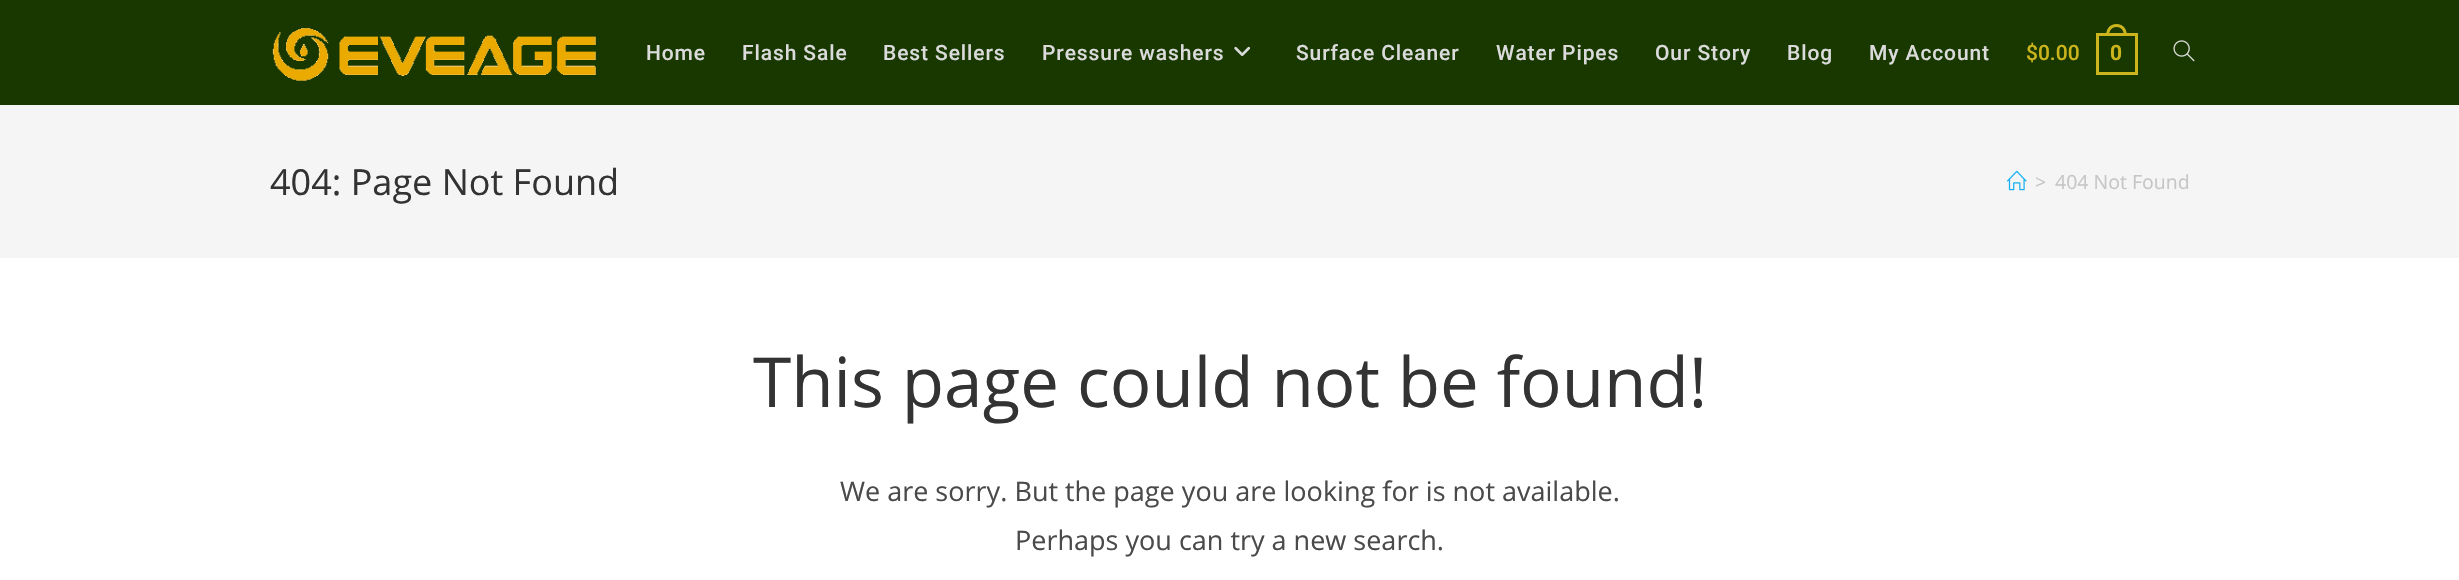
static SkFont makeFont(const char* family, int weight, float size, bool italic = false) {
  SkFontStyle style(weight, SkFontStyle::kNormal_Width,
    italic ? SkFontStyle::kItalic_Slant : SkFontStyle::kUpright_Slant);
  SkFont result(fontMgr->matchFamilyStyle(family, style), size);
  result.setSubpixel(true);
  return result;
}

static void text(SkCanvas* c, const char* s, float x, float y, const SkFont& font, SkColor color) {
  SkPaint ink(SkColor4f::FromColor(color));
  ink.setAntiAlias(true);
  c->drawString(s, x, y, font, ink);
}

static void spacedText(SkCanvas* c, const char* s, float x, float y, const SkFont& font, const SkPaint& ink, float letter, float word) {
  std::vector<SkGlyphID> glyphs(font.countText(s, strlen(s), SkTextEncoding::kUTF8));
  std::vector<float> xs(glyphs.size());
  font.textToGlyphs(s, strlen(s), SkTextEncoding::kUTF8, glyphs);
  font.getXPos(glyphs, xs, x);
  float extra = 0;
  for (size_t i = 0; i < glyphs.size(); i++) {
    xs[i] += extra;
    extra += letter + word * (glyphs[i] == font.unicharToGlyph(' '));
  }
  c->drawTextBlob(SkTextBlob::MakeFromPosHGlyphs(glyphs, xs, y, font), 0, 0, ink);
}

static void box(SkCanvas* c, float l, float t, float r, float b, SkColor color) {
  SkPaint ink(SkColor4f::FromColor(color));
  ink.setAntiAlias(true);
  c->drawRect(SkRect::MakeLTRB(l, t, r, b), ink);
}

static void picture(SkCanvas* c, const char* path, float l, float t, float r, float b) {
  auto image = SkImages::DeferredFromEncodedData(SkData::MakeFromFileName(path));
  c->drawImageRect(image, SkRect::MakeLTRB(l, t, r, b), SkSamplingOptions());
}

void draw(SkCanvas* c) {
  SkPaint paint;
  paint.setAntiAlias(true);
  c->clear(0xffffffff);
  box(c, 0, 0, 2459, 105, 0xff183800);
  picture(c, "img_01.png", 272, 28, 596, 81);
  SkFont face1 = makeFont("Roboto", 500, 21);
  paint.setColor(0xffdbdbdb);
  spacedText(c, "Home", 646, 60, face1, paint, 0.9f, 0);
  spacedText(c, "Flash Sale", 742, 60, face1, paint, 0.9f, 0);
  spacedText(c, "Best Sellers", 883, 60, face1, paint, 0.9f, 0);
  spacedText(c, "Pressure washers", 1042, 60, face1, paint, 0.9f, 0);
  picture(c, "img_02.png", 1234, 46, 1250, 56);
  spacedText(c, "Surface Cleaner", 1296, 60, face1, paint, 0.9f, 0);
  spacedText(c, "Water Pipes", 1496, 60, face1, paint, 0.9f, 0);
  spacedText(c, "Our Story", 1655, 60, face1, paint, 0.9f, 0);
  spacedText(c, "Blog", 1787, 60, face1, paint, 0.9f, 0);
  spacedText(c, "My Account", 1869, 60, face1, paint, 0.9f, 0);
  text(c, "$0.00", 2026, 60, face1, 0xffccb41c);
  paint.setStyle(SkPaint::kStroke_Style);
  paint.setStrokeWidth(3);
  paint.setColor(0xffccb41c);
  c->drawRect(SkRect::MakeLTRB(2097.5f, 34.5f, 2136.5f, 73.5f), paint);
  paint.setStyle(SkPaint::kFill_Style);
  c->drawPath(SkPathBuilder(SkPathFillType::kEvenOdd).moveTo(2116.5f, 24).cubicTo(2123.5f, 24, 2127, 29.5f, 2127, 36).lineTo(2106, 36).cubicTo(2106, 29.5f, 2109.5f, 24, 2116.5f, 24).close().moveTo(2116.5f, 27).cubicTo(2122, 27, 2124, 31.5f, 2124, 36).lineTo(2109, 36).cubicTo(2109, 31.5f, 2111, 27, 2116.5f, 27).close().detach(), paint);
  SkFont face2 = makeFont("Roboto", 700, 21);
  text(c, "0", 2110, 60, face2, 0xffccb41c);
  picture(c, "img_03.png", 2173, 40, 2195, 62);
  box(c, 0, 105, 2459, 258, 0xfff5f5f5);
  SkFont face3 = makeFont("Open Sans", 400, 36);
  text(c, "404: Page Not Found", 270, 195, face3, 0xff333333);
  picture(c, "img_04.png", 2007, 170, 2027, 191);
  SkFont face4 = makeFont("Open Sans", 400, 19.5f);
  text(c, ">", 2035, 189, face4, 0xffc6c6c6);
  text(c, "404 Not Found", 2055, 189, face4, 0xffc6c6c6);
  SkFont face5 = makeFont("Open Sans", 400, 69);
  text(c, "This page could not be found!", 753, 407, face5, 0xff333333);
  SkFont face6 = makeFont("Open Sans", 400, 27);
  text(c, "We are sorry. But the page you are looking for is not available.", 840, 501, face6, 0xff4a4a4a);
  text(c, "Perhaps you can try a new search.", 1015, 550, face6, 0xff4a4a4a);
}
